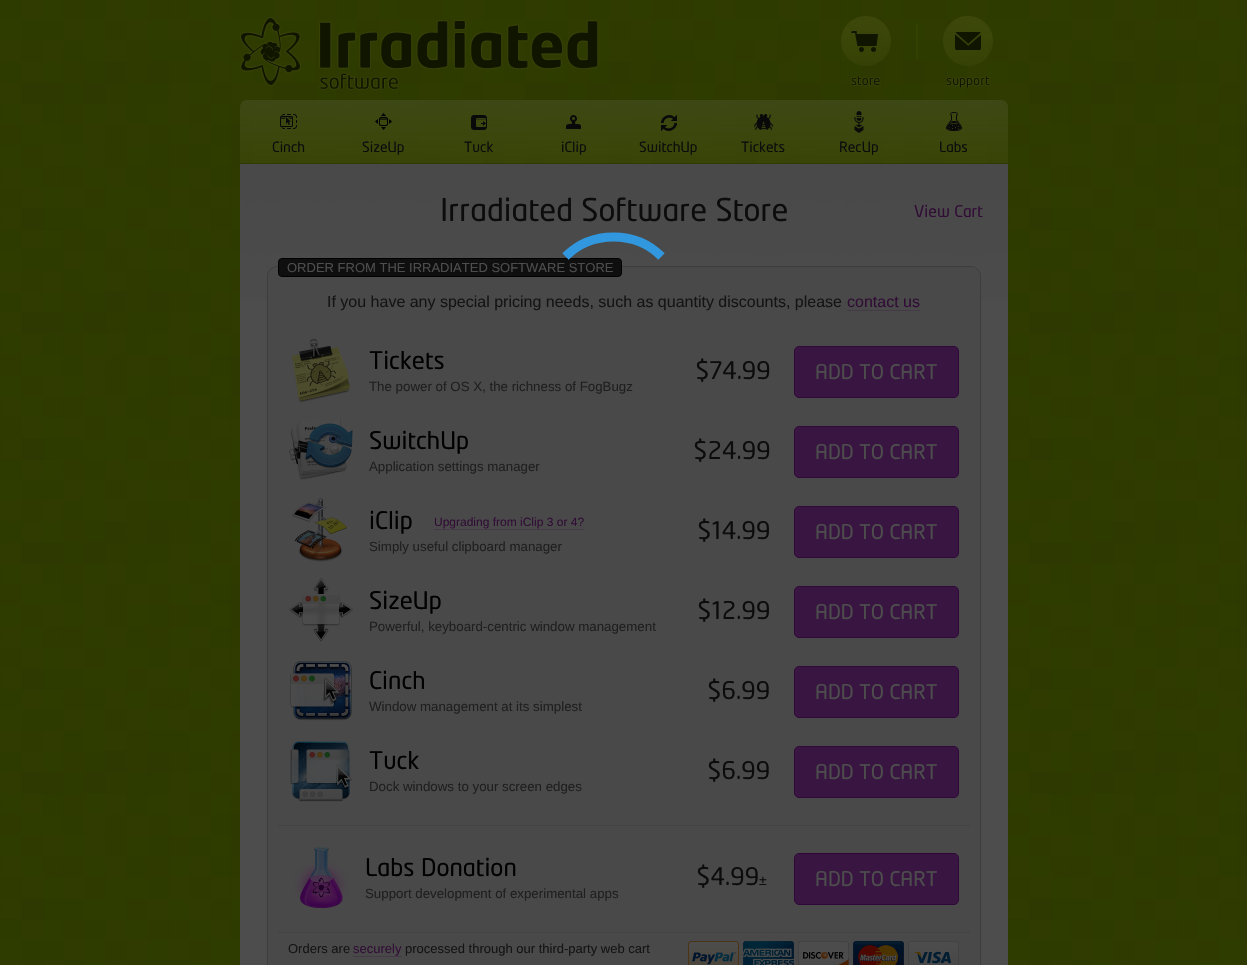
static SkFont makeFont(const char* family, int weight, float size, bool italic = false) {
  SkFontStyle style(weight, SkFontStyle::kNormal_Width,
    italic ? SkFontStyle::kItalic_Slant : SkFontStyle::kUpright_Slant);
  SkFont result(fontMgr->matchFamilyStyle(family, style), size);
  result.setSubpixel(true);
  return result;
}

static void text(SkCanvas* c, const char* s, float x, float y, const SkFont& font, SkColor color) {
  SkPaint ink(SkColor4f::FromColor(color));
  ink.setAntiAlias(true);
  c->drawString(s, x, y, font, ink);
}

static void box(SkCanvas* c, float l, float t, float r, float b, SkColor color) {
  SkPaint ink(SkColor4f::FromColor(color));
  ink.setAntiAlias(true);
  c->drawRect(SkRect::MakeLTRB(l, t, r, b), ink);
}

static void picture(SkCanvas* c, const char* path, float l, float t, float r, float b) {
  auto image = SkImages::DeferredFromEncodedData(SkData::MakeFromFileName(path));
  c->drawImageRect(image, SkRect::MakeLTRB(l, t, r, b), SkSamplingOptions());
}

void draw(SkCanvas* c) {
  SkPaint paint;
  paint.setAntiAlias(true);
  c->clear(0xff2f3c00);
  picture(c, "img_01.png", 0, 0, 1247, 965);
  picture(c, "img_02.png", 240, 17, 599, 90);
  picture(c, "img_03.png", 841, 16, 891, 86);
  picture(c, "img_04.png", 916, 23, 918, 59);
  picture(c, "img_05.png", 943, 16, 993, 89);
  {
    const SkColor colors[] = {0xff3c4715, 0x80424d0e};
    const float stops[] = {0, 1};
    const SkPoint ends[] = {{624, 100}, {624, 163}};
    paint.setShader(SkGradientShader::MakeLinear(ends, colors, stops, 2, SkTileMode::kClamp));
    paint.setAlpha(255);
  }
  c->drawPath(SkPathBuilder().moveTo(247, 100).lineTo(1001, 100).cubicTo(1005, 100, 1008, 103, 1008, 107).lineTo(1008, 163).lineTo(240, 163).lineTo(240, 107).cubicTo(240, 103, 243, 100, 247, 100).close().detach(), paint);
  picture(c, "img_06.png", 280, 114, 297, 129);
  SkFont face1 = makeFont("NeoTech", 400, 14);
  text(c, "Cinch", 272, 152, face1, 0xff0c0c0c);
  picture(c, "img_07.png", 375, 113, 392, 130);
  text(c, "SizeUp", 362, 152, face1, 0xff0c0c0c);
  picture(c, "img_08.png", 471, 115, 487, 130);
  text(c, "Tuck", 464, 152, face1, 0xff0c0c0c);
  picture(c, "img_09.png", 566, 115, 581, 129);
  text(c, "iClip", 561, 152, face1, 0xff0c0c0c);
  picture(c, "img_10.png", 661, 115, 677, 131);
  text(c, "SwitchUp", 639, 152, face1, 0xff0c0c0c);
  picture(c, "img_11.png", 754, 114, 774, 130);
  text(c, "Tickets", 741, 152, face1, 0xff0c0c0c);
  picture(c, "img_12.png", 854, 110, 864, 133);
  text(c, "RecUp", 839, 152, face1, 0xff0c0c0c);
  picture(c, "img_13.png", 945, 112, 963, 131);
  text(c, "Labs", 939, 152, face1, 0xff0c0c0c);
  box(c, 240, 301, 1008, 965, 0xff4d4d4d);
  picture(c, "img_14.png", 240, 165, 1008, 301);
  box(c, 240, 164, 1008, 165, 0xff494949);
  SkFont face2 = makeFont("NeoTech", 400, 31);
  text(c, "Irradiated Software Store", 440, 221, face2, 0xff0c0c0c);
  SkFont face3 = makeFont("NeoTech", 400, 16);
  text(c, "View Cart", 914, 217, face3, 0xff310d36);
  paint.setShader(nullptr);
  paint.setColor(0xff494949);
  c->drawRoundRect(SkRect::MakeLTRB(267.5f, 266.5f, 980.5f, 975.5f), 9.5f, 9.5f, paint);
  paint.setStyle(SkPaint::kStroke_Style);
  paint.setStrokeWidth(1);
  paint.setColor(0xff3d3d3d);
  c->drawRoundRect(SkRect::MakeLTRB(267.5f, 266.5f, 980.5f, 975.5f), 9.5f, 9.5f, paint);
  paint.setStyle(SkPaint::kFill_Style);
  paint.setColor(0xff0f0f0f);
  c->drawRoundRect(SkRect::MakeLTRB(278.5f, 258.5f, 621.5f, 276.5f), 3.5f, 3.5f, paint);
  paint.setStyle(SkPaint::kStroke_Style);
  paint.setColor(0xff000000);
  c->drawRoundRect(SkRect::MakeLTRB(278.5f, 258.5f, 621.5f, 276.5f), 3.5f, 3.5f, paint);
  SkFont face4 = makeFont("Liberation Sans", 400, 13);
  text(c, "ORDER FROM THE IRRADIATED SOFTWARE STORE", 287, 272, face4, 0xff4d4d4d);
  SkFont face5 = makeFont("Liberation Sans", 400, 16);
  text(c, "If you have any special pricing needs, such as quantity discounts, please", 327, 307, face5, 0xff141414);
  text(c, "contact us", 847, 307, face5, 0xff310d36);
  box(c, 847, 310, 920, 311, 0xff453947);
  picture(c, "img_15.png", 291, 338, 351, 402);
  SkFont face6 = makeFont("NeoTech", 400, 24);
  text(c, "Tickets", 369, 369, face6, 0xff000000);
  SkFont face7 = makeFont("Liberation Sans", 400, 13.3f);
  text(c, "The power of OS X, the richness of FogBugz", 369, 391, face7, 0xff1f1f1f);
  text(c, "$74.99", 695, 379, face6, 0xff0c0c0c);
  paint.setStyle(SkPaint::kFill_Style);
  paint.setColor(0xff381641);
  c->drawRoundRect(SkRect::MakeLTRB(794.5f, 346.5f, 958.5f, 397.5f), 4.5f, 4.5f, paint);
  paint.setStyle(SkPaint::kStroke_Style);
  paint.setColor(0xff2f0738);
  c->drawRoundRect(SkRect::MakeLTRB(794.5f, 346.5f, 958.5f, 397.5f), 4.5f, 4.5f, paint);
  SkFont face8 = makeFont("NeoTech", 400, 20);
  text(c, "ADD TO CART", 815, 379, face8, 0xff4d4d4d);
  picture(c, "img_16.png", 289, 419, 353, 480);
  text(c, "SwitchUp", 369, 449, face6, 0xff000000);
  text(c, "Application settings manager", 369, 471, face7, 0xff1f1f1f);
  text(c, "$24.99", 693, 459, face6, 0xff0c0c0c);
  paint.setStyle(SkPaint::kFill_Style);
  paint.setColor(0xff381641);
  c->drawRoundRect(SkRect::MakeLTRB(794.5f, 426.5f, 958.5f, 477.5f), 4.5f, 4.5f, paint);
  paint.setStyle(SkPaint::kStroke_Style);
  paint.setColor(0xff2f0738);
  c->drawRoundRect(SkRect::MakeLTRB(794.5f, 426.5f, 958.5f, 477.5f), 4.5f, 4.5f, paint);
  text(c, "ADD TO CART", 815, 459, face8, 0xff4d4d4d);
  picture(c, "img_17.png", 292, 498, 347, 562);
  text(c, "iClip", 369, 529, face6, 0xff000000);
  SkFont face9 = makeFont("Liberation Sans", 400, 12);
  text(c, "Upgrading from iClip 3 or 4?", 434, 526, face9, 0xff310d36);
  box(c, 434, 529, 584, 530, 0xff453947);
  text(c, "Simply useful clipboard manager", 369, 551, face7, 0xff1f1f1f);
  text(c, "$14.99", 697, 539, face6, 0xff0c0c0c);
  paint.setStyle(SkPaint::kFill_Style);
  paint.setColor(0xff381641);
  c->drawRoundRect(SkRect::MakeLTRB(794.5f, 506.5f, 958.5f, 557.5f), 4.5f, 4.5f, paint);
  paint.setStyle(SkPaint::kStroke_Style);
  paint.setColor(0xff2f0738);
  c->drawRoundRect(SkRect::MakeLTRB(794.5f, 506.5f, 958.5f, 557.5f), 4.5f, 4.5f, paint);
  text(c, "ADD TO CART", 815, 539, face8, 0xff4d4d4d);
  picture(c, "img_18.png", 289, 578, 353, 642);
  text(c, "SizeUp", 369, 609, face6, 0xff000000);
  text(c, "Powerful, keyboard-centric window management", 369, 631, face7, 0xff1f1f1f);
  text(c, "$12.99", 697, 619, face6, 0xff0c0c0c);
  paint.setStyle(SkPaint::kFill_Style);
  paint.setColor(0xff381641);
  c->drawRoundRect(SkRect::MakeLTRB(794.5f, 586.5f, 958.5f, 637.5f), 4.5f, 4.5f, paint);
  paint.setStyle(SkPaint::kStroke_Style);
  paint.setColor(0xff2f0738);
  c->drawRoundRect(SkRect::MakeLTRB(794.5f, 586.5f, 958.5f, 637.5f), 4.5f, 4.5f, paint);
  text(c, "ADD TO CART", 815, 619, face8, 0xff4d4d4d);
  picture(c, "img_19.png", 290, 661, 352, 721);
  text(c, "Cinch", 369, 689, face6, 0xff000000);
  text(c, "Window management at its simplest", 369, 711, face7, 0xff1f1f1f);
  text(c, "$6.99", 707, 699, face6, 0xff0c0c0c);
  paint.setStyle(SkPaint::kFill_Style);
  paint.setColor(0xff381641);
  c->drawRoundRect(SkRect::MakeLTRB(794.5f, 666.5f, 958.5f, 717.5f), 4.5f, 4.5f, paint);
  paint.setStyle(SkPaint::kStroke_Style);
  paint.setColor(0xff2f0738);
  c->drawRoundRect(SkRect::MakeLTRB(794.5f, 666.5f, 958.5f, 717.5f), 4.5f, 4.5f, paint);
  text(c, "ADD TO CART", 815, 699, face8, 0xff4d4d4d);
  picture(c, "img_20.png", 290, 741, 352, 802);
  text(c, "Tuck", 369, 769, face6, 0xff000000);
  text(c, "Dock windows to your screen edges", 369, 791, face7, 0xff1f1f1f);
  text(c, "$6.99", 707, 779, face6, 0xff0c0c0c);
  paint.setStyle(SkPaint::kFill_Style);
  paint.setColor(0xff381641);
  c->drawRoundRect(SkRect::MakeLTRB(794.5f, 746.5f, 958.5f, 797.5f), 4.5f, 4.5f, paint);
  paint.setStyle(SkPaint::kStroke_Style);
  paint.setColor(0xff2f0738);
  c->drawRoundRect(SkRect::MakeLTRB(794.5f, 746.5f, 958.5f, 797.5f), 4.5f, 4.5f, paint);
  text(c, "ADD TO CART", 815, 779, face8, 0xff4d4d4d);
  box(c, 278, 825, 970, 826, 0xff414241);
  picture(c, "img_21.png", 293, 847, 349, 908);
  text(c, "Labs Donation", 365, 876, face6, 0xff000000);
  text(c, "Support development of experimental apps", 365, 898, face7, 0xff1f1f1f);
  text(c, "$4.99", 696, 885, face6, 0xff0c0c0c);
  SkFont face10 = makeFont("Liberation Sans", 400, 14);
  text(c, "±", 759, 885, face10, 0xff0c0c0c);
  paint.setStyle(SkPaint::kFill_Style);
  paint.setColor(0xff381641);
  c->drawRoundRect(SkRect::MakeLTRB(794.5f, 853.5f, 958.5f, 904.5f), 4.5f, 4.5f, paint);
  paint.setStyle(SkPaint::kStroke_Style);
  paint.setColor(0xff2f0738);
  c->drawRoundRect(SkRect::MakeLTRB(794.5f, 853.5f, 958.5f, 904.5f), 4.5f, 4.5f, paint);
  text(c, "ADD TO CART", 815, 886, face8, 0xff4d4d4d);
  box(c, 278, 932, 970, 933, 0xff414241);
  text(c, "Orders are", 288, 953, face4, 0xff141414);
  text(c, "securely", 353, 953, face4, 0xff310d36);
  box(c, 353, 956, 402, 957, 0xff453947);
  text(c, "processed through our third-party web cart", 405, 953, face4, 0xff141414);
  picture(c, "img_22.png", 688, 941, 959, 965);
  paint.setStrokeWidth(9);
  paint.setColor(0xff3198df);
  c->drawPath(SkPathBuilder().moveTo(565.5f, 256.5f).cubicTo(591.5f, 230.5f, 635.5f, 230.5f, 661.5f, 256.5f).detach(), paint);
}
